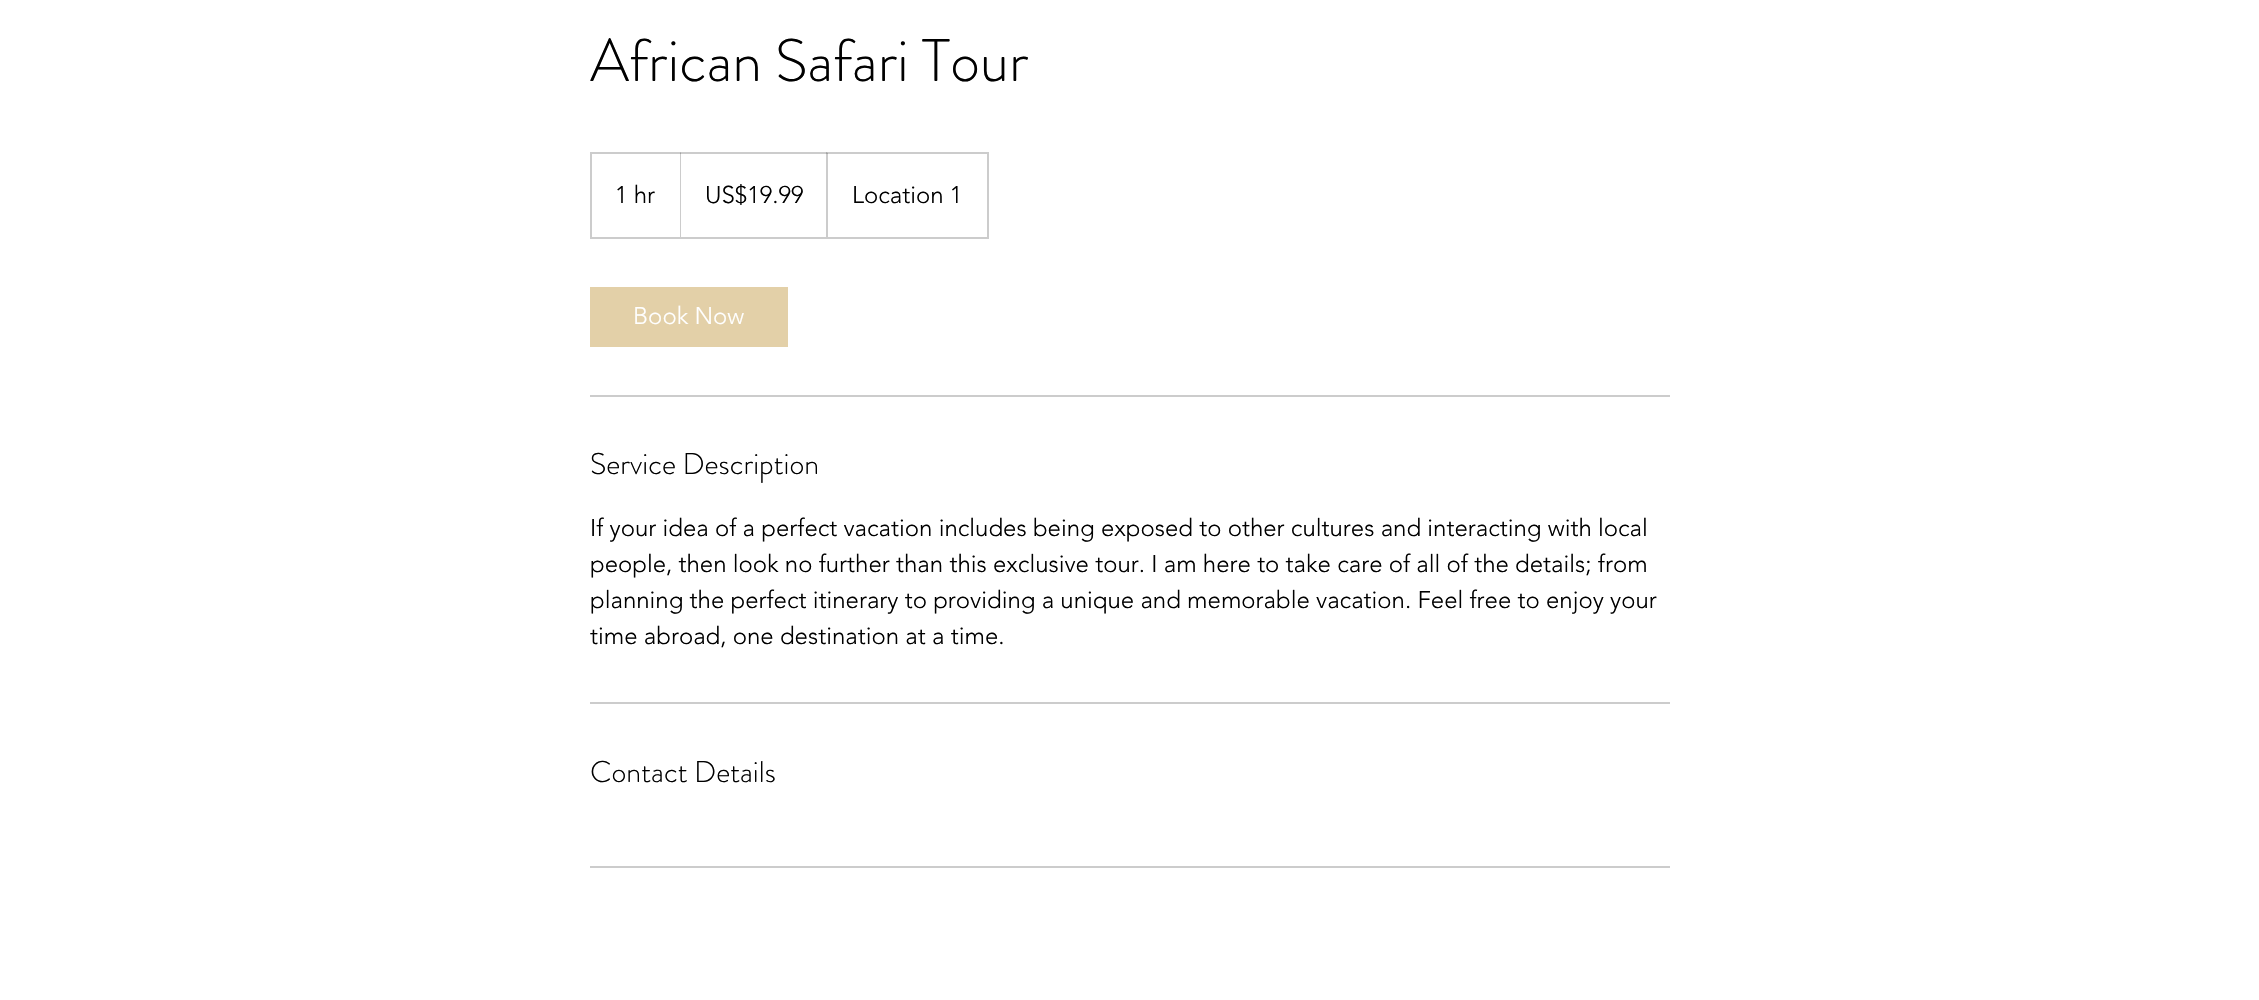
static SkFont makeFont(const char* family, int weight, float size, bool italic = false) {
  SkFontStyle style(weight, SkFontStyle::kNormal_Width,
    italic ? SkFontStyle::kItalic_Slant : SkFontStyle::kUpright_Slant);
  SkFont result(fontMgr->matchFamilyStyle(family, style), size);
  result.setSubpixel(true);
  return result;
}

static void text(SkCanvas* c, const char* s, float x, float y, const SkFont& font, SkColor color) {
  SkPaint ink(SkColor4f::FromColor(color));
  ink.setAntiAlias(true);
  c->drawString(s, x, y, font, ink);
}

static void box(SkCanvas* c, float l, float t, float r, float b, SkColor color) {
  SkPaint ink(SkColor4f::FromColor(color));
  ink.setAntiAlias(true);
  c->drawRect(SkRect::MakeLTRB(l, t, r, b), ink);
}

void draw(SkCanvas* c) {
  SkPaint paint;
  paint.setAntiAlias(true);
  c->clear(0xffffffff);
  SkFont face1 = makeFont("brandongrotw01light", 300, 60);
  text(c, "African Safari Tour", 590, 81, face1, 0xff000000);
  paint.setStyle(SkPaint::kStroke_Style);
  paint.setStrokeWidth(2);
  paint.setColor(0xffcccccc);
  c->drawRect(SkRect::MakeLTRB(591, 153, 988, 238), paint);
  SkFont face2 = makeFont("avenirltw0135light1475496", 300, 24);
  text(c, "1 hr", 615, 203, face2, 0xff000000);
  paint.setStyle(SkPaint::kFill_Style);
  paint.setColor(0x33000000);
  c->drawPath(SkPathBuilder().moveTo(680, 237).lineTo(680, 152).lineTo(681, 153).lineTo(681, 237).close().detach(), paint);
  text(c, "US$19.99", 705, 203, face2, 0xff000000);
  c->drawPath(SkPathBuilder().moveTo(826, 237).lineTo(826, 152).lineTo(828, 153).lineTo(828, 237).close().detach(), paint);
  text(c, "Location 1", 852, 203, face2, 0xff000000);
  box(c, 590, 287, 788, 347, 0xffe3d0a8);
  text(c, "Book Now", 633, 324, face2, 0xffffffff);
  box(c, 590, 395, 1670, 397, 0xffcccccc);
  SkFont face3 = makeFont("brandongrotw01light", 300, 30);
  text(c, "Service Description", 590, 474, face3, 0xff000000);
  text(c, "If your idea of a perfect vacation includes being exposed to other cultures and interacting with local", 590, 536, face2, 0xff000000);
  text(c, "people, then look no further than this exclusive tour. I am here to take care of all of the details; from", 590, 572, face2, 0xff000000);
  text(c, "planning the perfect itinerary to providing a unique and memorable vacation. Feel free to enjoy your", 590, 608, face2, 0xff000000);
  text(c, "time abroad, one destination at a time.", 590, 644, face2, 0xff000000);
  box(c, 590, 702, 1670, 704, 0xffcccccc);
  text(c, "Contact Details", 590, 782, face3, 0xff000000);
  box(c, 590, 866, 1670, 868, 0xffcccccc);
}
